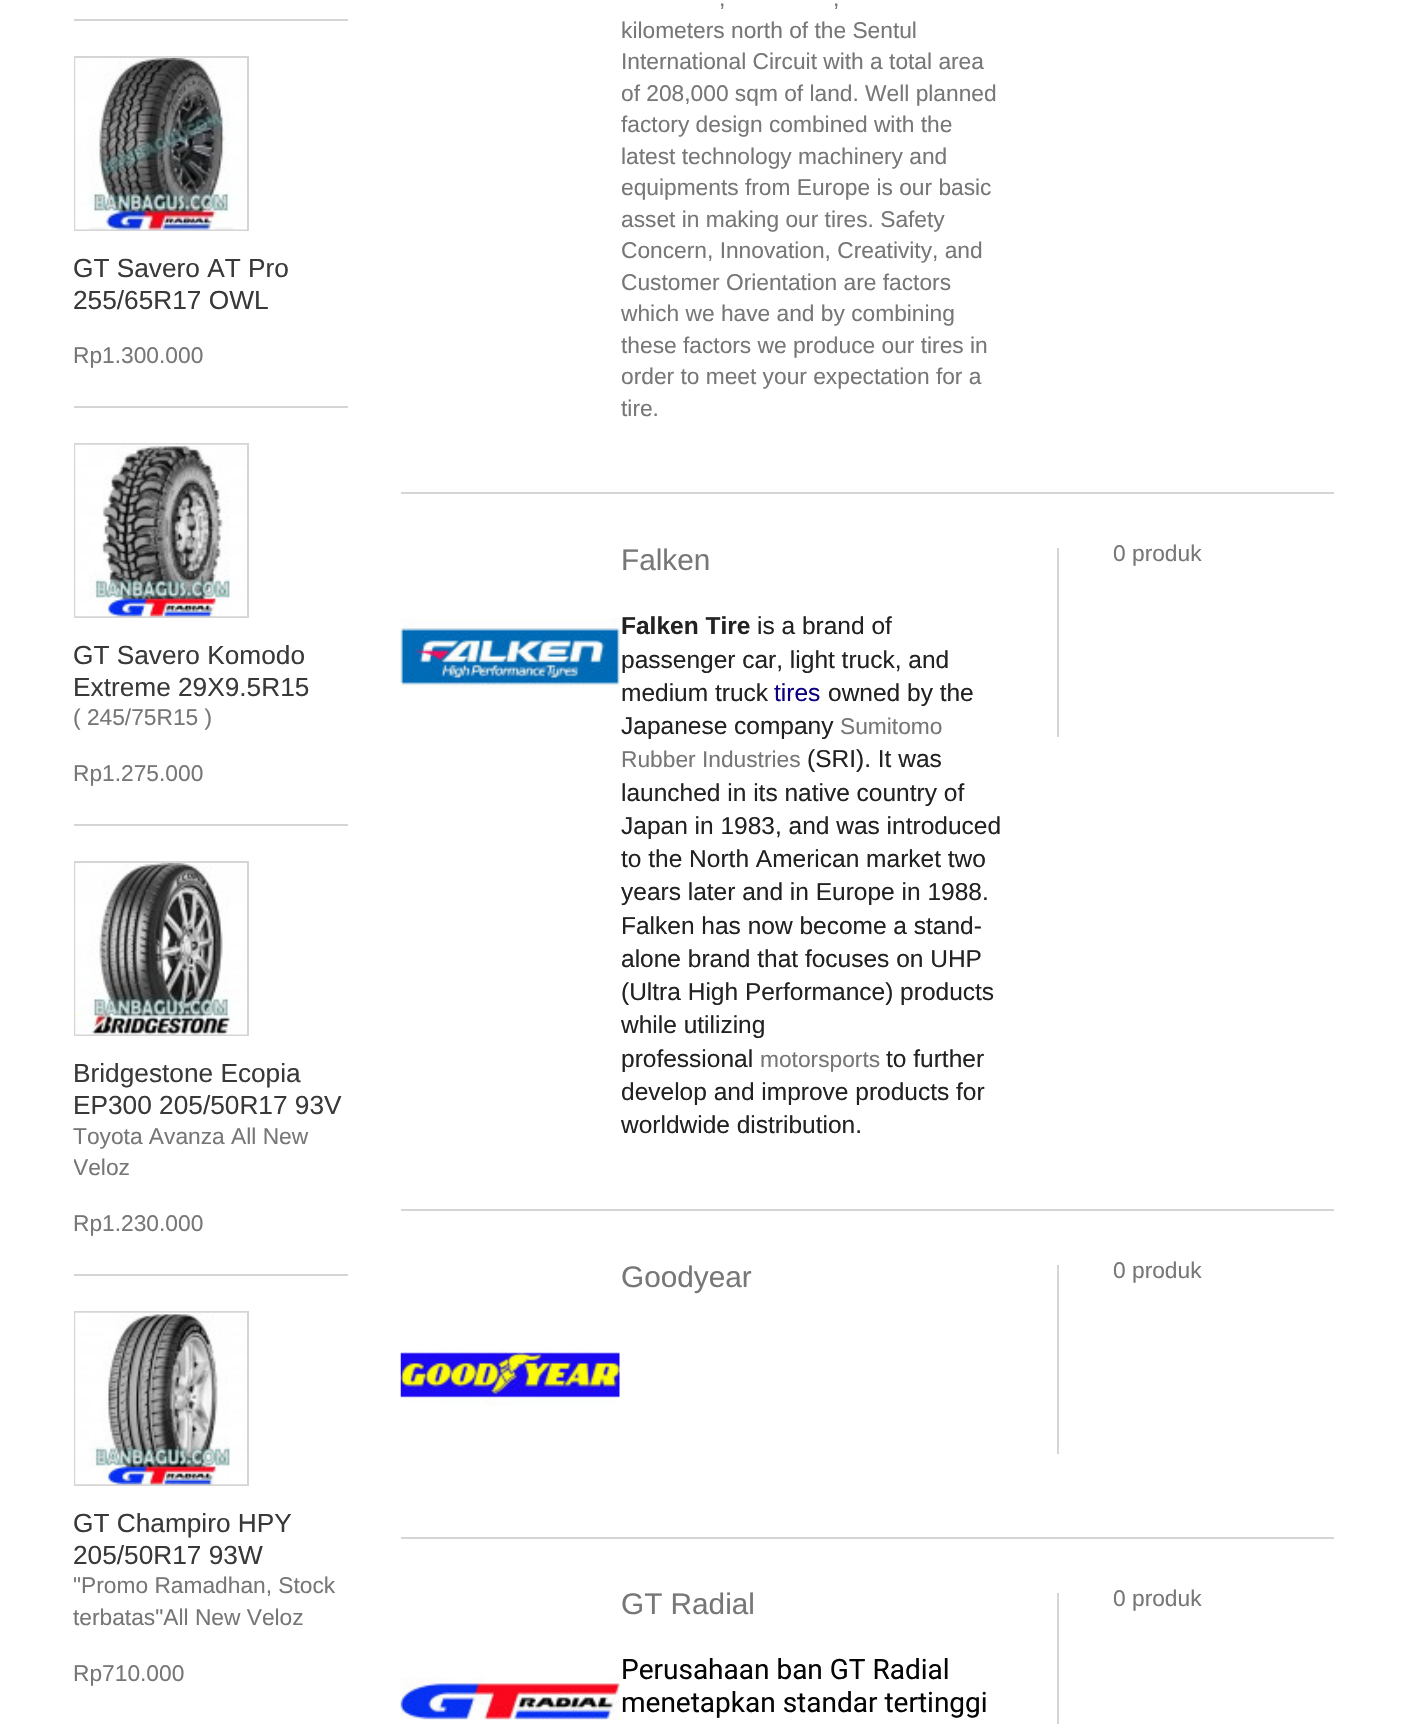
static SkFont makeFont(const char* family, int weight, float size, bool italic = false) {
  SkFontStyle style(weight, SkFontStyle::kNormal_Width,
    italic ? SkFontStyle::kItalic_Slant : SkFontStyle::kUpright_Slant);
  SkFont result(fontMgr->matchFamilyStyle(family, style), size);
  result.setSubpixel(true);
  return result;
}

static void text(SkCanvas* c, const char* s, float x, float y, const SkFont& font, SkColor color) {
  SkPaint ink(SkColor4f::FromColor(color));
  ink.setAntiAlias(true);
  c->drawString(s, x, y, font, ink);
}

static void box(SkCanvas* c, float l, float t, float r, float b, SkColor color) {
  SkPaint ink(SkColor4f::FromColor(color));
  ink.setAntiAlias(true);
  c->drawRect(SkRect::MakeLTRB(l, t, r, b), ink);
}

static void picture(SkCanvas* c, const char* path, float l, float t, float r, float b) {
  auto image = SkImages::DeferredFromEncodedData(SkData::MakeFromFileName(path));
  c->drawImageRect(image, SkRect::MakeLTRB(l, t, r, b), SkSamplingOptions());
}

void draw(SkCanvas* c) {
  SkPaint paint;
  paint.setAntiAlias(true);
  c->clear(0xffffffff);
  box(c, 74, 19, 348, 21, 0xffd6d4d4);
  box(c, 74, 406, 348, 408, 0xffd6d4d4);
  paint.setStyle(SkPaint::kStroke_Style);
  paint.setStrokeWidth(2);
  paint.setColor(0xffd6d4d4);
  c->drawRect(SkRect::MakeLTRB(75, 57, 248, 230), paint);
  picture(c, "img_01.png", 75, 58, 247, 230);
  SkFont face1 = makeFont("Liberation Sans", 400, 26.25f);
  text(c, "GT Savero AT Pro", 73, 277, face1, 0xff3a3939);
  text(c, "255/65R17 OWL", 73, 309, face1, 0xff3a3939);
  SkFont face2 = makeFont("Liberation Sans", 400, 22.75f);
  text(c, "Rp1.300.000", 73, 363, face2, 0xff777777);
  box(c, 74, 824, 348, 826, 0xffd6d4d4);
  c->drawRect(SkRect::MakeLTRB(75, 444, 248, 617), paint);
  picture(c, "img_02.png", 75, 444, 247, 617);
  text(c, "GT Savero Komodo", 73, 664, face1, 0xff3a3939);
  text(c, "Extreme 29X9.5R15", 73, 696, face1, 0xff3a3939);
  text(c, "( 245/75R15 )", 73, 725, face2, 0xff777777);
  text(c, "Rp1.275.000", 73, 781, face2, 0xff777777);
  box(c, 74, 1274, 348, 1276, 0xffd6d4d4);
  c->drawRect(SkRect::MakeLTRB(75, 862, 248, 1035), paint);
  picture(c, "img_03.png", 75, 863, 247, 1035);
  text(c, "Bridgestone Ecopia", 73, 1082, face1, 0xff3a3939);
  text(c, "EP300 205/50R17 93V", 73, 1114, face1, 0xff3a3939);
  text(c, "Toyota Avanza All New", 73, 1144, face2, 0xff777777);
  c->save();
  c->clipRect(SkRect::MakeLTRB(74, 1062, 348, 1239));
  text(c, "Veloz", 73, 1175, face2, 0xff777777);
  c->restore();
  text(c, "Rp1.230.000", 73, 1231, face2, 0xff777777);
  c->drawRect(SkRect::MakeLTRB(75, 1312, 248, 1485), paint);
  picture(c, "img_04.png", 75, 1312, 247, 1485);
  text(c, "GT Champiro HPY", 73, 1532, face1, 0xff3a3939);
  text(c, "205/50R17 93W", 73, 1564, face1, 0xff3a3939);
  c->save();
  c->clipRect(SkRect::MakeLTRB(74, 1512, 348, 1689));
  text(c, "\"Promo Ramadhan, Stock", 73, 1593, face2, 0xff777777);
  c->restore();
  text(c, "terbatas\"All New Veloz", 73, 1625, face2, 0xff777777);
  text(c, "Rp710.000", 73, 1681, face2, 0xff777777);
  text(c, ",", 719, 6, face2, 0xff777777);
  text(c, ",", 833, 6, face2, 0xff777777);
  text(c, "kilometers north of the Sentul", 621, 38, face2, 0xff777777);
  text(c, "International Circuit with a total area", 621, 69, face2, 0xff777777);
  text(c, "of 208,000 sqm of land. Well planned", 621, 101, face2, 0xff777777);
  text(c, "factory design combined with the", 621, 132, face2, 0xff777777);
  text(c, "latest technology machinery and", 621, 164, face2, 0xff777777);
  text(c, "equipments from Europe is our basic", 621, 195, face2, 0xff777777);
  text(c, "asset in making our tires. Safety", 621, 227, face2, 0xff777777);
  text(c, "Concern, Innovation, Creativity, and", 621, 258, face2, 0xff777777);
  text(c, "Customer Orientation are factors", 621, 290, face2, 0xff777777);
  text(c, "which we have and by combining", 621, 321, face2, 0xff777777);
  text(c, "these factors we produce our tires in", 621, 353, face2, 0xff777777);
  text(c, "order to meet your expectation for a", 621, 384, face2, 0xff777777);
  text(c, "tire.", 621, 416, face2, 0xff777777);
  box(c, 401, 492, 1334, 494, 0xffd6d4d4);
  picture(c, "img_05.png", 400, 618, 620, 688);
  SkFont face3 = makeFont("Liberation Sans", 400, 29.75f);
  text(c, "Falken", 621, 570, face3, 0xff777777);
  SkFont face4 = makeFont("Liberation Sans", 700, 24.5f);
  text(c, "Falken Tire", 621, 634, face4, 0xff222222);
  SkFont face5 = makeFont("Liberation Sans", 400, 24.5f);
  text(c, "is a brand of", 757, 634, face5, 0xff222222);
  text(c, "passenger car, light truck, and", 621, 668, face5, 0xff222222);
  text(c, "medium truck", 621, 701, face5, 0xff222222);
  text(c, "tires", 774, 701, face5, 0xff0b0080);
  text(c, "owned by the", 828, 701, face5, 0xff222222);
  text(c, "Japanese company", 621, 734, face5, 0xff222222);
  text(c, "Sumitomo", 840, 734, face2, 0xff777777);
  text(c, "Rubber Industries", 621, 767, face2, 0xff777777);
  text(c, "(SRI). It was", 807, 767, face5, 0xff222222);
  text(c, "launched in its native country of", 621, 801, face5, 0xff222222);
  text(c, "Japan in 1983, and was introduced", 621, 834, face5, 0xff222222);
  text(c, "to the North American market two", 621, 867, face5, 0xff222222);
  text(c, "years later and in Europe in 1988.", 621, 900, face5, 0xff222222);
  text(c, "Falken has now become a stand-", 621, 934, face5, 0xff222222);
  text(c, "alone brand that focuses on UHP", 621, 967, face5, 0xff222222);
  text(c, "(Ultra High Performance) products", 621, 1000, face5, 0xff222222);
  text(c, "while utilizing", 621, 1033, face5, 0xff222222);
  text(c, "professional", 621, 1067, face5, 0xff222222);
  text(c, "motorsports", 760, 1067, face2, 0xff777777);
  text(c, "to further", 886, 1067, face5, 0xff222222);
  text(c, "develop and improve products for", 621, 1100, face5, 0xff222222);
  text(c, "worldwide distribution.", 621, 1133, face5, 0xff222222);
  box(c, 1057, 548, 1059, 737, 0xffd6d4d4);
  text(c, "0 produk", 1113, 561, face2, 0xff777777);
  box(c, 401, 1209, 1334, 1211, 0xffd6d4d4);
  text(c, "Goodyear", 621, 1287, face3, 0xff777777);
  box(c, 1057, 1265, 1059, 1454, 0xffd6d4d4);
  text(c, "0 produk", 1113, 1278, face2, 0xff777777);
  picture(c, "img_06.png", 400, 1349, 620, 1405);
  box(c, 401, 1537, 1334, 1539, 0xffd6d4d4);
  picture(c, "img_07.png", 400, 1677, 620, 1720);
  text(c, "GT Radial", 621, 1614, face3, 0xff777777);
  SkFont face6 = makeFont("Roboto", 400, 28);
  text(c, "Perusahaan ban GT Radial", 621, 1679, face6, 0xff050505);
  text(c, "menetapkan standar tertinggi", 621, 1712, face6, 0xff050505);
  box(c, 1057, 1593, 1059, 1724, 0xffd6d4d4);
  text(c, "0 produk", 1113, 1606, face2, 0xff777777);
}
